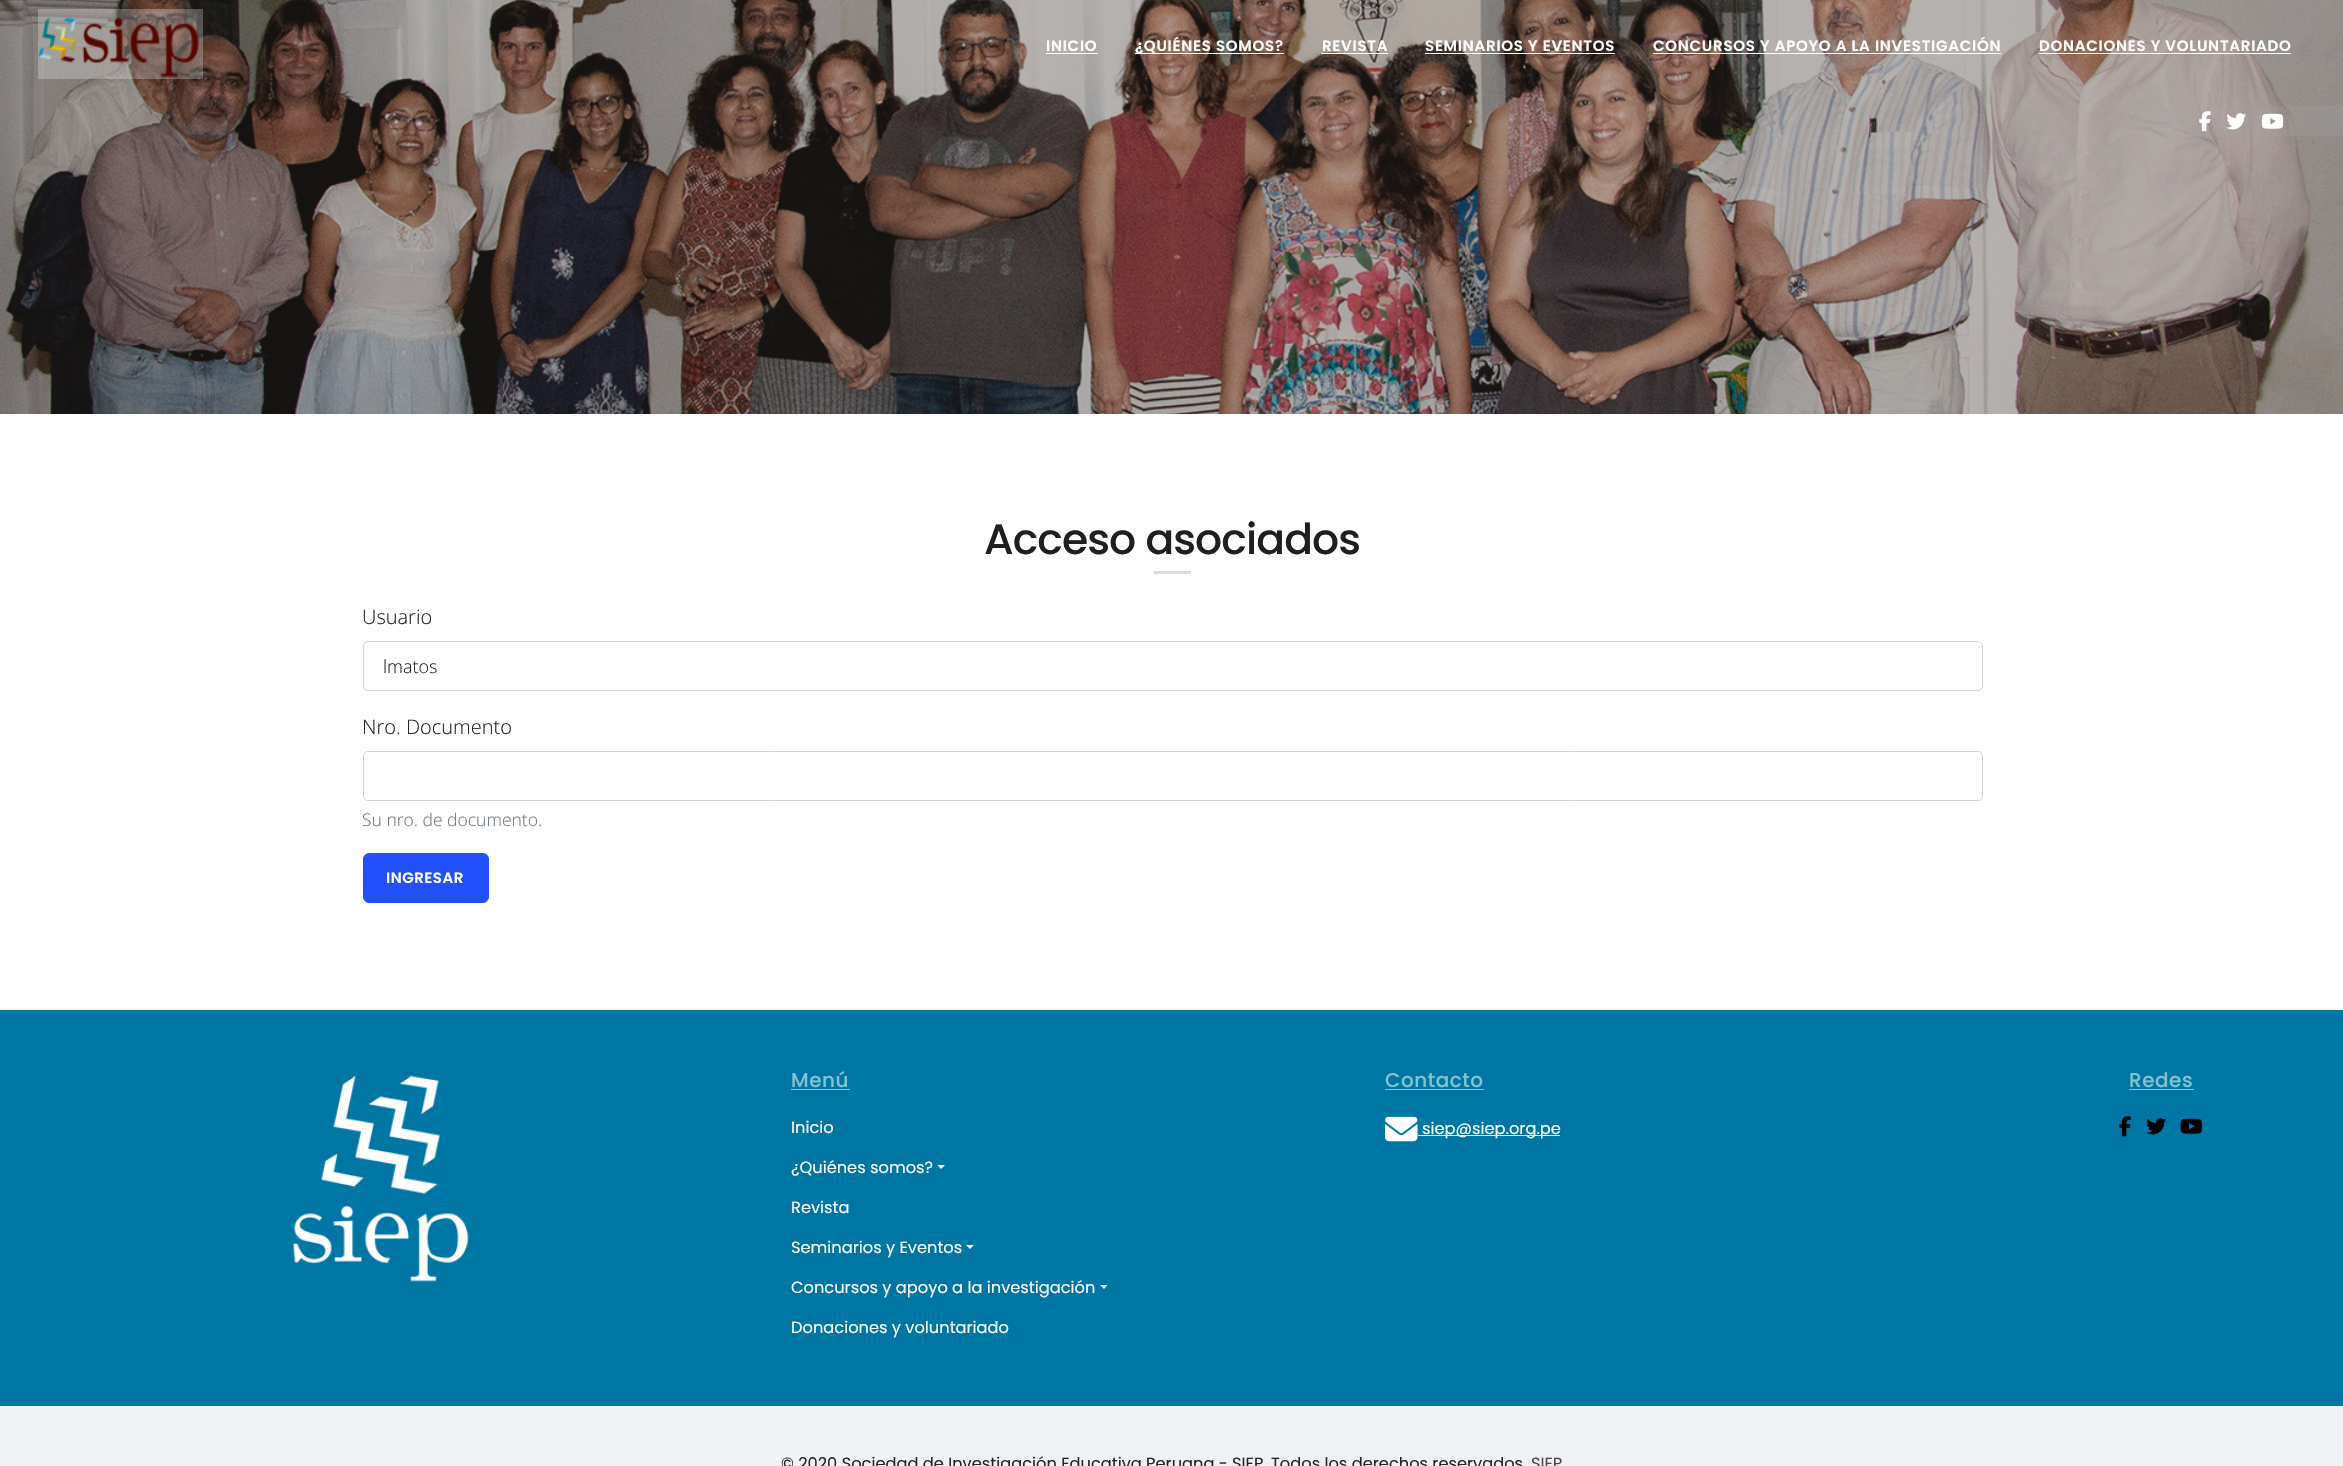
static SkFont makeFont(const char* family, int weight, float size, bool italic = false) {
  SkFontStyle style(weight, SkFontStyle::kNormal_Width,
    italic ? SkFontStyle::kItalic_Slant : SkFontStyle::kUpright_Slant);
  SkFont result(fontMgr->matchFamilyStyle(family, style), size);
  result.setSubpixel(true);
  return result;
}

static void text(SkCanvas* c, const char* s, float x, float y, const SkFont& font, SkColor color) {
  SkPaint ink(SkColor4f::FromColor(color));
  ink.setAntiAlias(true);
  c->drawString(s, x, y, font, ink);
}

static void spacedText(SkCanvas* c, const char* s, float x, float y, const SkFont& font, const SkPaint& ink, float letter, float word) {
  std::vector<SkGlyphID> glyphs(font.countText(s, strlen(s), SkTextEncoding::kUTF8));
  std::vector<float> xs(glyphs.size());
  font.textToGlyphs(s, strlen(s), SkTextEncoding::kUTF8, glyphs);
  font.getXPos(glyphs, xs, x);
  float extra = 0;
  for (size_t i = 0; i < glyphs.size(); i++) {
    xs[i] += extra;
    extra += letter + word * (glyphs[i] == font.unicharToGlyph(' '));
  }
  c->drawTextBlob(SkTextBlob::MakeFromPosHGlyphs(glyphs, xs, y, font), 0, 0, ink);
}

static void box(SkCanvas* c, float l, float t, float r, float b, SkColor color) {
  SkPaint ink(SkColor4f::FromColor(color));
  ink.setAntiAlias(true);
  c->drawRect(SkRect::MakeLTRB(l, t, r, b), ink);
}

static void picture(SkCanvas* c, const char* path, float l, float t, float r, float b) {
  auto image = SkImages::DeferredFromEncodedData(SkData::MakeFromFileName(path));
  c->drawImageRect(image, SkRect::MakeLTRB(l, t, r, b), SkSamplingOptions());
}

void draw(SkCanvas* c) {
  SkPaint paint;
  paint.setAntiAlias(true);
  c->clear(0xffeff1f4);
  picture(c, "img_01.png", 0, 0, 2343, 414);
  box(c, 38, 9, 203, 79, 0x40ffffff);
  picture(c, "img_02.png", 38, 16, 199, 78);
  SkFont face1 = makeFont("Poppins", 600, 15);
  paint.setColor(0xffffffff);
  spacedText(c, "INICIO", 1046, 51, face1, paint, 0.75f, 0);
  box(c, 1046, 53, 1098, 54, 0xffffffff);
  box(c, 1135, 53, 1284, 54, 0xffffffff);
  spacedText(c, "¿QUIÉNES SOMOS?", 1135, 51, face1, paint, 0.75f, 0);
  spacedText(c, "REVISTA", 1322, 51, face1, paint, 0.75f, 0);
  box(c, 1321, 53, 1388, 54, 0xffffffff);
  spacedText(c, "SEMINARIOS Y EVENTOS", 1425, 51, face1, paint, 0.75f, 0);
  box(c, 1425, 53, 1615, 54, 0xffffffff);
  spacedText(c, "CONCURSOS Y APOYO A LA INVESTIGACIÓN", 1653, 51, face1, paint, 0.75f, 0);
  box(c, 1653, 53, 2001, 54, 0xffffffff);
  spacedText(c, "DONACIONES Y VOLUNTARIADO", 2039, 51, face1, paint, 0.75f, 0);
  box(c, 2039, 53, 2291, 54, 0xffffffff);
  box(c, 2149, 106, 2343, 136, 0x40a7a3a3);
  picture(c, "img_03.png", 2199, 111, 2211, 132);
  picture(c, "img_04.png", 2226, 113, 2246, 130);
  picture(c, "img_05.png", 2261, 113, 2284, 129);
  box(c, 0, 414, 2343, 1010, 0xffffffff);
  SkFont face2 = makeFont("Poppins", 500, 42.5f);
  paint.setColor(0xff1f1f1f);
  spacedText(c, "Acceso asociados", 984, 554, face2, paint, -0.9f, 0);
  box(c, 1154, 571, 1191, 574, 0xffdddddd);
  SkFont face3 = makeFont("Open Sans", 300, 20);
  text(c, "Usuario", 362, 624, face3, 0xff212529);
  paint.setStyle(SkPaint::kStroke_Style);
  paint.setStrokeWidth(1);
  paint.setColor(0xffced4da);
  c->drawRoundRect(SkRect::MakeLTRB(363.5f, 641.5f, 1982.5f, 690.5f), 4.5f, 4.5f, paint);
  SkFont face4 = makeFont("Open Sans", 300, 18);
  text(c, "lmatos", 383, 673, face4, 0xff212529);
  text(c, "Nro. Documento", 362, 734, face3, 0xff212529);
  c->drawRoundRect(SkRect::MakeLTRB(363.5f, 751.5f, 1982.5f, 800.5f), 4.5f, 4.5f, paint);
  SkFont face5 = makeFont("Open Sans", 300, 17.5f);
  text(c, "Su nro. de documento.", 362, 826, face5, 0xff6c757d);
  paint.setStyle(SkPaint::kFill_Style);
  paint.setColor(0xff2250fc);
  c->drawRoundRect(SkRect::MakeLTRB(363.5f, 853.5f, 488.5f, 902.5f), 5.5f, 5.5f, paint);
  paint.setStyle(SkPaint::kStroke_Style);
  c->drawRoundRect(SkRect::MakeLTRB(363.5f, 853.5f, 488.5f, 902.5f), 5.5f, 5.5f, paint);
  paint.setStyle(SkPaint::kFill_Style);
  paint.setColor(0xffffffff);
  spacedText(c, "INGRESAR", 386, 883, face1, paint, 0.5f, 0);
  box(c, 0, 1010, 2343, 1406, 0xff0076a5);
  picture(c, "img_06.png", 293, 1075, 469, 1282);
  SkFont face6 = makeFont("Poppins", 500, 20);
  paint.setColor(0xff83c2d1);
  spacedText(c, "Menú", 791, 1087, face6, paint, 0.5f, 0);
  box(c, 791, 1089, 850, 1090, 0xff83c2d1);
  SkFont face7 = makeFont("Poppins", 400, 16.25f);
  text(c, "Inicio", 791, 1133, face7, 0xffffffff);
  text(c, "¿Quiénes somos?", 791, 1173, face7, 0xffffffff);
  paint.setColor(0xffffffff);
  c->drawPath(SkPathBuilder().moveTo(937.5f, 1165).lineTo(945, 1165).lineTo(941, 1169).close().detach(), paint);
  text(c, "Revista", 791, 1213, face7, 0xffffffff);
  text(c, "Seminarios y Eventos", 791, 1253, face7, 0xffffffff);
  c->drawPath(SkPathBuilder().moveTo(966, 1245).lineTo(974, 1245).lineTo(970, 1249).close().detach(), paint);
  text(c, "Concursos y apoyo a la investigación", 791, 1293, face7, 0xffffffff);
  c->drawPath(SkPathBuilder().moveTo(1100, 1285).lineTo(1107.5f, 1285).lineTo(1104, 1289).close().detach(), paint);
  text(c, "Donaciones y voluntariado", 791, 1333, face7, 0xffffffff);
  paint.setColor(0xff83c2d1);
  spacedText(c, "Contacto", 1385, 1087, face6, paint, 0.5f, 0);
  box(c, 1385, 1089, 1484, 1090, 0xff83c2d1);
  picture(c, "img_07.png", 1385, 1116, 1418, 1142);
  box(c, 1418, 1135, 1560, 1136, 0xffffffff);
  text(c, "siep@siep.org.pe", 1422, 1134, face7, 0xffffffff);
  spacedText(c, "Redes", 2129, 1087, face6, paint, 0.5f, 0);
  box(c, 2129, 1089, 2194, 1090, 0xff83c2d1);
  picture(c, "img_08.png", 2119, 1116, 2131, 1137);
  picture(c, "img_09.png", 2146, 1118, 2167, 1135);
  picture(c, "img_10.png", 2180, 1118, 2202, 1134);
  text(c, "© 2020 Sociedad de Investigación Educativa Peruana - SIEP. Todos los derechos reservados", 781, 1469, face7, 0xff212529);
  text(c, "SIEP", 1531, 1469, face7, 0xff484848);
}
